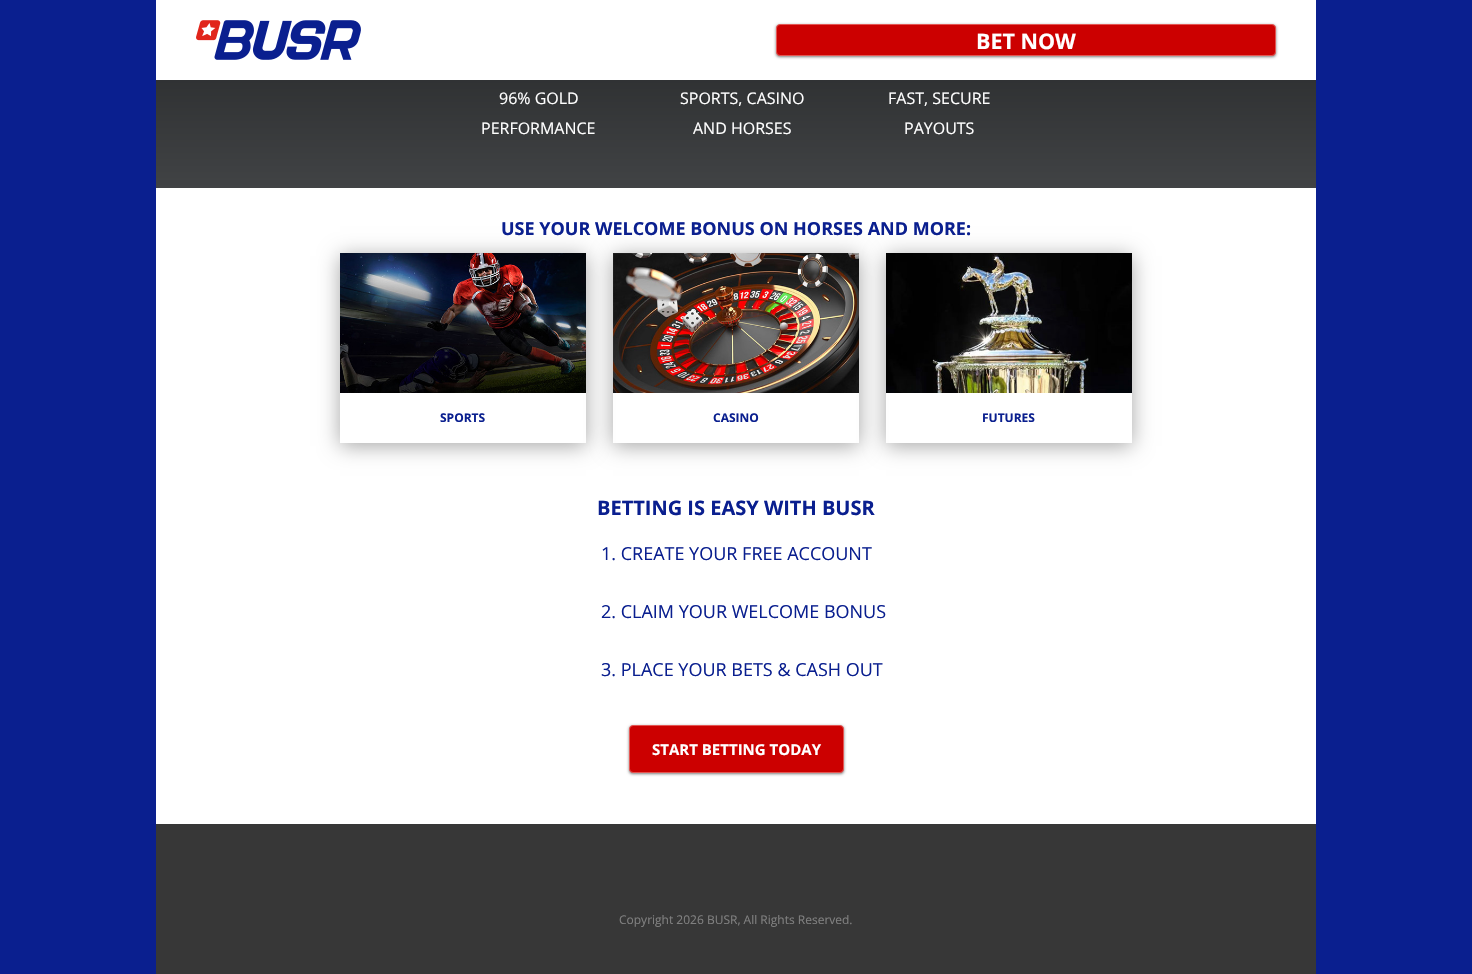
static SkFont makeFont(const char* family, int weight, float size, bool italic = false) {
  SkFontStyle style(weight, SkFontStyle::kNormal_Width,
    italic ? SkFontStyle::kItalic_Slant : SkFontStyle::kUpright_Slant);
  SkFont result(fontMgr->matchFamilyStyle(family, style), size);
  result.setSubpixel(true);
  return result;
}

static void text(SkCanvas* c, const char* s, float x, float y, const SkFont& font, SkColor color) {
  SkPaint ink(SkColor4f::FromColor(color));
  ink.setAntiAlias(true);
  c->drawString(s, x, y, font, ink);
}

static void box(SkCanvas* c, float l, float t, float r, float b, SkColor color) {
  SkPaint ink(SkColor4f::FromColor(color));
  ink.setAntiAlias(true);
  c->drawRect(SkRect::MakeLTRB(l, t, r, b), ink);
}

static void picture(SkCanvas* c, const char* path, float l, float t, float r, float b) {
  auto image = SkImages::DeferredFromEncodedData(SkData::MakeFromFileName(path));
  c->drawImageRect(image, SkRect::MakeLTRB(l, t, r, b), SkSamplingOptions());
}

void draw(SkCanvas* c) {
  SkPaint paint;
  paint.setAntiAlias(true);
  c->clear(0xff0a1f8f);
  box(c, 156, 188, 1316, 824, 0xffffffff);
  box(c, 156, 0, 1316, 80, 0xffffffff);
  picture(c, "img_01.png", 196, 20, 361, 60);
  paint.setColor(0xff7d7a7a);
  paint.setMaskFilter(SkMaskFilter::MakeBlur(kNormal_SkBlurStyle, 1.5f));
  c->drawRoundRect(SkRect::MakeLTRB(776, 25, 1276, 57), 4, 4, paint);
  paint.setMaskFilter(nullptr);
  paint.setColor(0xffcc0000);
  c->drawRoundRect(SkRect::MakeLTRB(776.5f, 24.5f, 1275.5f, 55.5f), 3.5f, 3.5f, paint);
  paint.setStyle(SkPaint::kStroke_Style);
  paint.setStrokeWidth(1);
  paint.setColor(0xffe45653);
  c->drawRoundRect(SkRect::MakeLTRB(776.5f, 24.5f, 1275.5f, 55.5f), 3.5f, 3.5f, paint);
  SkFont face1 = makeFont("Open Sans", 700, 21.5f);
  text(c, "BET NOW", 976, 49, face1, 0xffffffff);
  paint.setStyle(SkPaint::kFill_Style);
  {
    const SkColor colors[] = {0xff414345, 0xff232526};
    const float stops[] = {0, 1};
    const SkPoint ends[] = {{736, 188}, {736, -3}};
    paint.setShader(SkGradientShader::MakeLinear(ends, colors, stops, 2, SkTileMode::kClamp));
    paint.setAlpha(255);
  }
  c->drawRect(SkRect::MakeLTRB(156, 80, 1316, 188), paint);
  SkFont face2 = makeFont("Open Sans", 400, 16);
  text(c, "96% GOLD", 499, 104, face2, 0xffffffff);
  text(c, "PERFORMANCE", 481, 134, face2, 0xffffffff);
  text(c, "SPORTS, CASINO", 680, 104, face2, 0xffffffff);
  text(c, "AND HORSES", 693, 134, face2, 0xffffffff);
  text(c, "FAST, SECURE", 888, 104, face2, 0xffffffff);
  text(c, "PAYOUTS", 904, 134, face2, 0xffffffff);
  SkFont face3 = makeFont("Open Sans", 700, 18);
  text(c, "USE YOUR WELCOME BONUS ON HORSES AND MORE:", 501, 235, face3, 0xff0a1f8f);
  c->save();
  c->clipPath(SkPathBuilder(SkPathFillType::kEvenOdd).moveTo(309, 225).lineTo(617, 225).lineTo(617, 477).lineTo(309, 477).close().moveTo(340, 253).lineTo(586, 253).lineTo(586, 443).lineTo(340, 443).close().detach(), true);
  paint.setShader(nullptr);
  paint.setColor(0xffa6a6a6);
  paint.setMaskFilter(SkMaskFilter::MakeBlur(kNormal_SkBlurStyle, 10));
  c->drawRect(SkRect::MakeLTRB(340, 256, 586, 446), paint);
  paint.setMaskFilter(nullptr);
  c->restore();
  picture(c, "img_02.png", 340, 253, 586, 393);
  SkFont face4 = makeFont("Open Sans", 700, 12);
  text(c, "SPORTS", 440, 422, face4, 0xff0a1f8f);
  c->save();
  c->clipPath(SkPathBuilder(SkPathFillType::kEvenOdd).moveTo(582, 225).lineTo(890, 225).lineTo(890, 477).lineTo(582, 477).close().moveTo(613, 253).lineTo(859, 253).lineTo(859, 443).lineTo(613, 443).close().detach(), true);
  paint.setMaskFilter(SkMaskFilter::MakeBlur(kNormal_SkBlurStyle, 10));
  c->drawRect(SkRect::MakeLTRB(613, 256, 859, 446), paint);
  paint.setMaskFilter(nullptr);
  c->restore();
  picture(c, "img_03.png", 613, 253, 859, 393);
  text(c, "CASINO", 713, 422, face4, 0xff0a1f8f);
  c->save();
  c->clipPath(SkPathBuilder(SkPathFillType::kEvenOdd).moveTo(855, 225).lineTo(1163, 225).lineTo(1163, 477).lineTo(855, 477).close().moveTo(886, 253).lineTo(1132, 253).lineTo(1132, 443).lineTo(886, 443).close().detach(), true);
  paint.setMaskFilter(SkMaskFilter::MakeBlur(kNormal_SkBlurStyle, 10));
  c->drawRect(SkRect::MakeLTRB(886, 256, 1132, 446), paint);
  paint.setMaskFilter(nullptr);
  c->restore();
  picture(c, "img_04.png", 886, 253, 1132, 393);
  text(c, "FUTURES", 982, 422, face4, 0xff0a1f8f);
  SkFont face5 = makeFont("Open Sans", 700, 20);
  text(c, "BETTING IS EASY WITH BUSR", 597, 515, face5, 0xff0a1f8f);
  SkFont face6 = makeFont("Open Sans", 400, 18);
  text(c, "1. CREATE YOUR FREE ACCOUNT", 601, 560, face6, 0xff0a1f8f);
  text(c, "2. CLAIM YOUR WELCOME BONUS", 601, 618, face6, 0xff0a1f8f);
  text(c, "3. PLACE YOUR BETS & CASH OUT", 601, 676, face6, 0xff0a1f8f);
  paint.setColor(0xff7d7a7a);
  paint.setMaskFilter(SkMaskFilter::MakeBlur(kNormal_SkBlurStyle, 1.5f));
  c->drawRoundRect(SkRect::MakeLTRB(629, 726, 844, 774), 4, 4, paint);
  paint.setMaskFilter(nullptr);
  paint.setColor(0xffcc0000);
  c->drawRoundRect(SkRect::MakeLTRB(629.5f, 725.5f, 843.5f, 772.5f), 3.5f, 3.5f, paint);
  paint.setStyle(SkPaint::kStroke_Style);
  paint.setColor(0xffe45653);
  c->drawRoundRect(SkRect::MakeLTRB(629.5f, 725.5f, 843.5f, 772.5f), 3.5f, 3.5f, paint);
  SkFont face7 = makeFont("Open Sans", 700, 15);
  text(c, "START BETTING TODAY", 652, 755, face7, 0xffffffff);
  box(c, 156, 824, 1316, 974, 0xff373737);
  SkFont face8 = makeFont("Open Sans", 400, 12);
  text(c, "Copyright 2026 BUSR, All Rights Reserved.", 619, 924, face8, 0xff808080);
}
